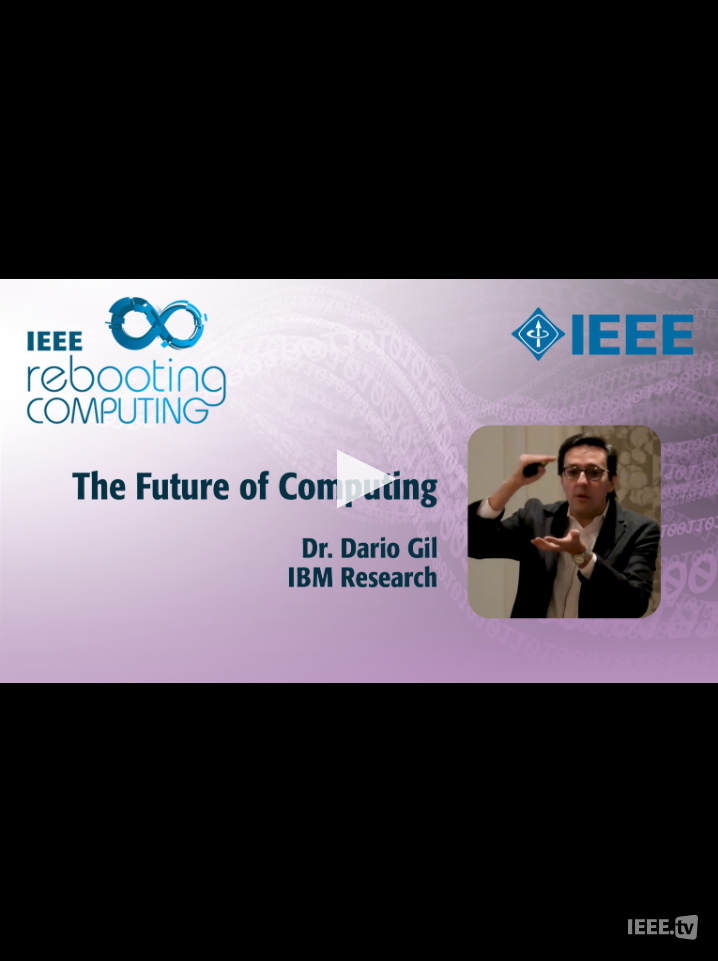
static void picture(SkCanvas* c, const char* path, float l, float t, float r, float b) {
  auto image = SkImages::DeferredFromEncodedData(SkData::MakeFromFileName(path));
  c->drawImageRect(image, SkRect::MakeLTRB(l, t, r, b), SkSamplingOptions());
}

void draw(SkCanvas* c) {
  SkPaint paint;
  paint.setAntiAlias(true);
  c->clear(0xff000000);
  picture(c, "img_01.png", 0, 279, 718, 683);
  paint.setColor(0xccffffff);
  c->drawPath(SkPathBuilder().moveTo(338, 508).lineTo(337, 508).lineTo(337, 450).lineTo(338, 450).lineTo(395, 478).cubicTo(395, 479, 396, 479, 395, 480).close().detach(), paint);
  picture(c, "img_02.png", 628, 915, 698, 940);
}
